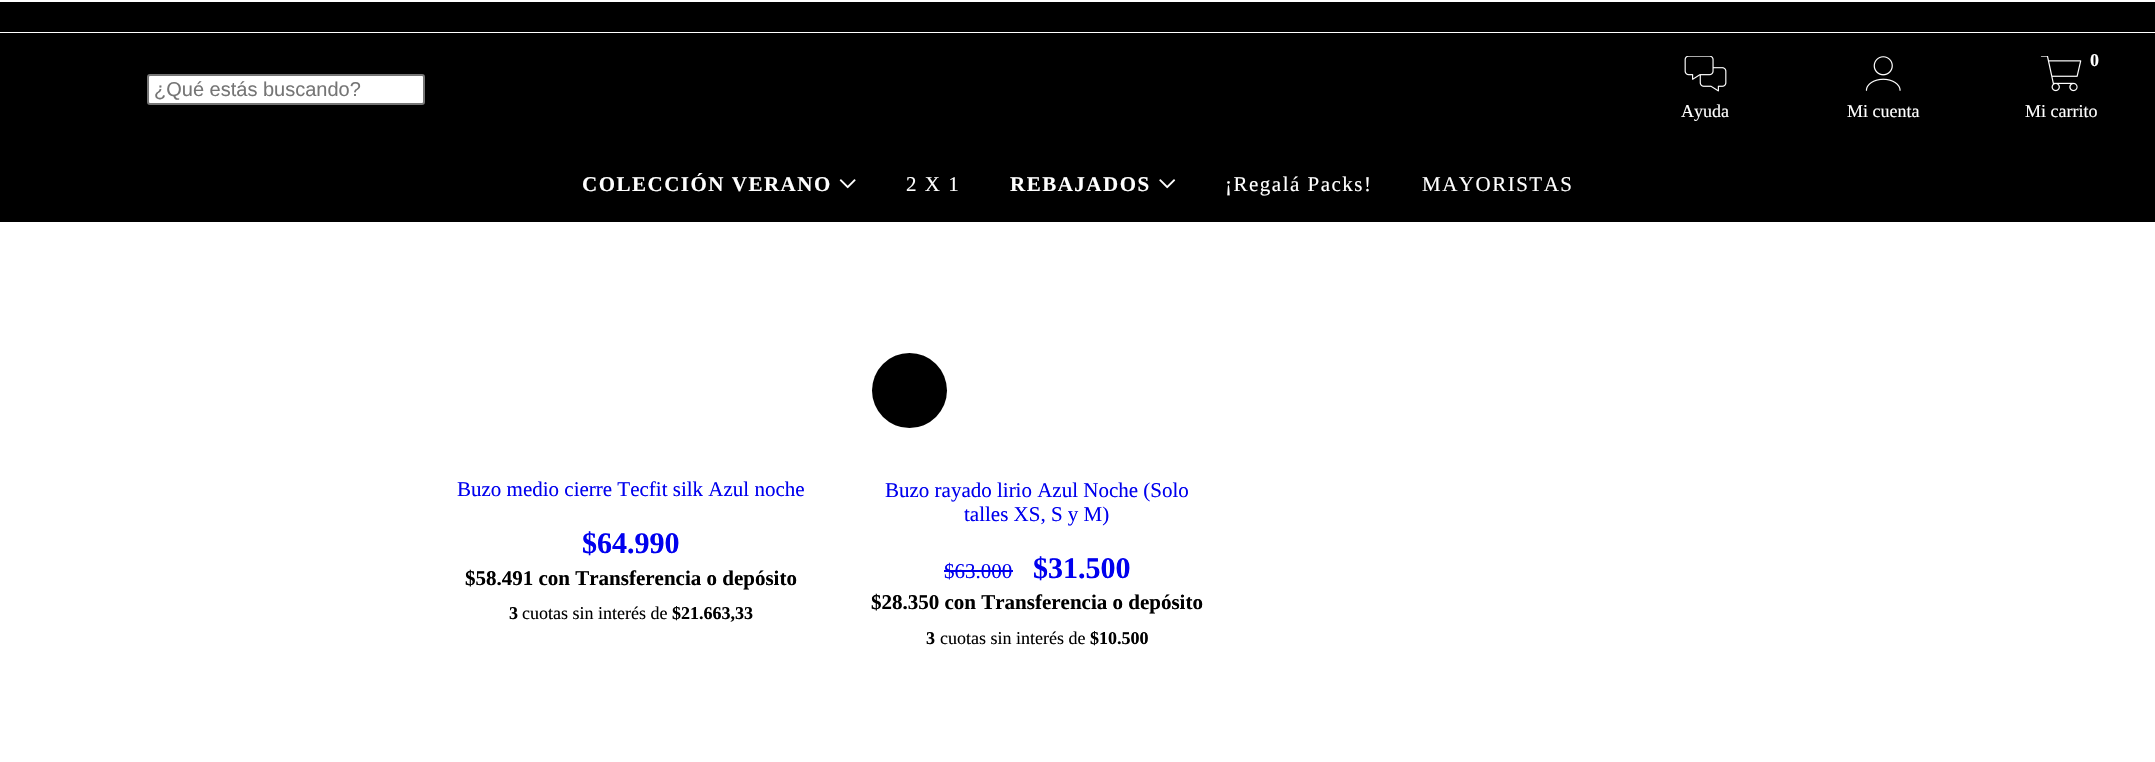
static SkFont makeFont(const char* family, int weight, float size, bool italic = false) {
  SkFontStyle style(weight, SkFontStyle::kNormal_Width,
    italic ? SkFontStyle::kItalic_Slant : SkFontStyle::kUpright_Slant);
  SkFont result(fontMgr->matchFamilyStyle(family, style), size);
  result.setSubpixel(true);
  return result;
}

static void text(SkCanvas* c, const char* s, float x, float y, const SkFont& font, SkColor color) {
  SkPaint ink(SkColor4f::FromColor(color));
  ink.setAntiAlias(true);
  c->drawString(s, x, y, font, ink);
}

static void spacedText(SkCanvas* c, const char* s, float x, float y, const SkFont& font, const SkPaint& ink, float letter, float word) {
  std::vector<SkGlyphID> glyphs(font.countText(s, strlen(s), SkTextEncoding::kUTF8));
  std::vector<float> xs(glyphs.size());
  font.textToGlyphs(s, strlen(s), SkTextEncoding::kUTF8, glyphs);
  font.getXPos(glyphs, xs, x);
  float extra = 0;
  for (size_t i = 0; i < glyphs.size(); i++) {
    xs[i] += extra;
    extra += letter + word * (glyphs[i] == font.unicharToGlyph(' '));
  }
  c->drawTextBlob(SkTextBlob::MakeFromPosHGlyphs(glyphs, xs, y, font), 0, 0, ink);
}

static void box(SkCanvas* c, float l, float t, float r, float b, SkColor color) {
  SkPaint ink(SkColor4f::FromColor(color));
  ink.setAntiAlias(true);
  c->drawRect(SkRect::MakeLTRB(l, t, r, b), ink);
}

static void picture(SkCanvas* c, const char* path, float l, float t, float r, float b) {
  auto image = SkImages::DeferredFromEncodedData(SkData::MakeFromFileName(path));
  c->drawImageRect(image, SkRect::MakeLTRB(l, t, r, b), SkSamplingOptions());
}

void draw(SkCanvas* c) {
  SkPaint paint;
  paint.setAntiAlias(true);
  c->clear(0xffffffff);
  box(c, 0, 2, 2155, 32, 0xff000000);
  box(c, 0, 33, 2155, 222, 0xff000000);
  paint.setColor(0xffffffff);
  c->drawRoundRect(SkRect::MakeLTRB(148, 75, 424, 104), 2, 2, paint);
  paint.setStyle(SkPaint::kStroke_Style);
  paint.setStrokeWidth(2);
  paint.setColor(0xff767676);
  c->drawRoundRect(SkRect::MakeLTRB(148, 75, 424, 104), 2, 2, paint);
  SkFont face1 = makeFont("Liberation Sans", 400, 20);
  text(c, "¿Qué estás buscando?", 154, 96, face1, 0xff757575);
  picture(c, "img_01.png", 1684, 56, 1727, 92);
  SkFont face2 = makeFont("Liberation Serif", 400, 18);
  text(c, "Ayuda", 1681, 117, face2, 0xffffffff);
  picture(c, "img_02.png", 1865, 56, 1901, 91);
  text(c, "Mi cuenta", 1847, 117, face2, 0xffffffff);
  picture(c, "img_03.png", 2040, 56, 2082, 92);
  SkFont face3 = makeFont("Liberation Serif", 700, 18);
  text(c, "0", 2090, 66, face3, 0xffffffff);
  text(c, "Mi carrito", 2025, 117, face2, 0xffffffff);
  SkFont face4 = makeFont("Liberation Serif", 700, 21);
  paint.setStyle(SkPaint::kFill_Style);
  paint.setColor(0xffffffff);
  spacedText(c, "COLECCIÓN VERANO", 582, 191, face4, paint, 1.5f, 0);
  picture(c, "img_04.png", 839, 179, 856, 189);
  SkFont face5 = makeFont("Liberation Serif", 400, 21);
  spacedText(c, "2 X 1", 906, 191, face5, paint, 1.5f, 0);
  spacedText(c, "REBAJADOS", 1010, 191, face4, paint, 1.5f, 0);
  picture(c, "img_05.png", 1159, 179, 1176, 189);
  spacedText(c, "¡Regalá Packs!", 1225, 191, face5, paint, 1.5f, 0);
  spacedText(c, "MAYORISTAS", 1422, 191, face5, paint, 1.5f, 0);
  text(c, "Buzo medio cierre Tecfit silk Azul noche", 457, 496, face5, 0xff0000ee);
  SkFont face6 = makeFont("Liberation Serif", 700, 30);
  text(c, "$64.990", 582, 553, face6, 0xff0000ee);
  text(c, "$58.491 con Transferencia o depósito", 465, 585, face4, 0xff000000);
  text(c, "3", 509, 619, face3, 0xff000000);
  text(c, "cuotas sin interés de", 522, 619, face2, 0xff000000);
  text(c, "$21.663,33", 672, 619, face3, 0xff000000);
  paint.setColor(0xff000000);
  c->drawCircle(909.5f, 390.5f, 37.5f, paint);
  text(c, "Buzo rayado lirio Azul Noche (Solo", 885, 497, face5, 0xff0000ee);
  text(c, "talles XS, S y M)", 964, 521, face5, 0xff0000ee);
  text(c, "$63.000", 944, 578, face5, 0xff0000ee);
  box(c, 944, 570, 1013, 572, 0xff0000ee);
  text(c, "$31.500", 1033, 578, face6, 0xff0000ee);
  text(c, "$28.350 con Transferencia o depósito", 871, 609, face4, 0xff000000);
  text(c, "3", 926, 644, face3, 0xff000000);
  text(c, "cuotas sin interés de", 940, 644, face2, 0xff000000);
  text(c, "$10.500", 1090, 644, face3, 0xff000000);
}
